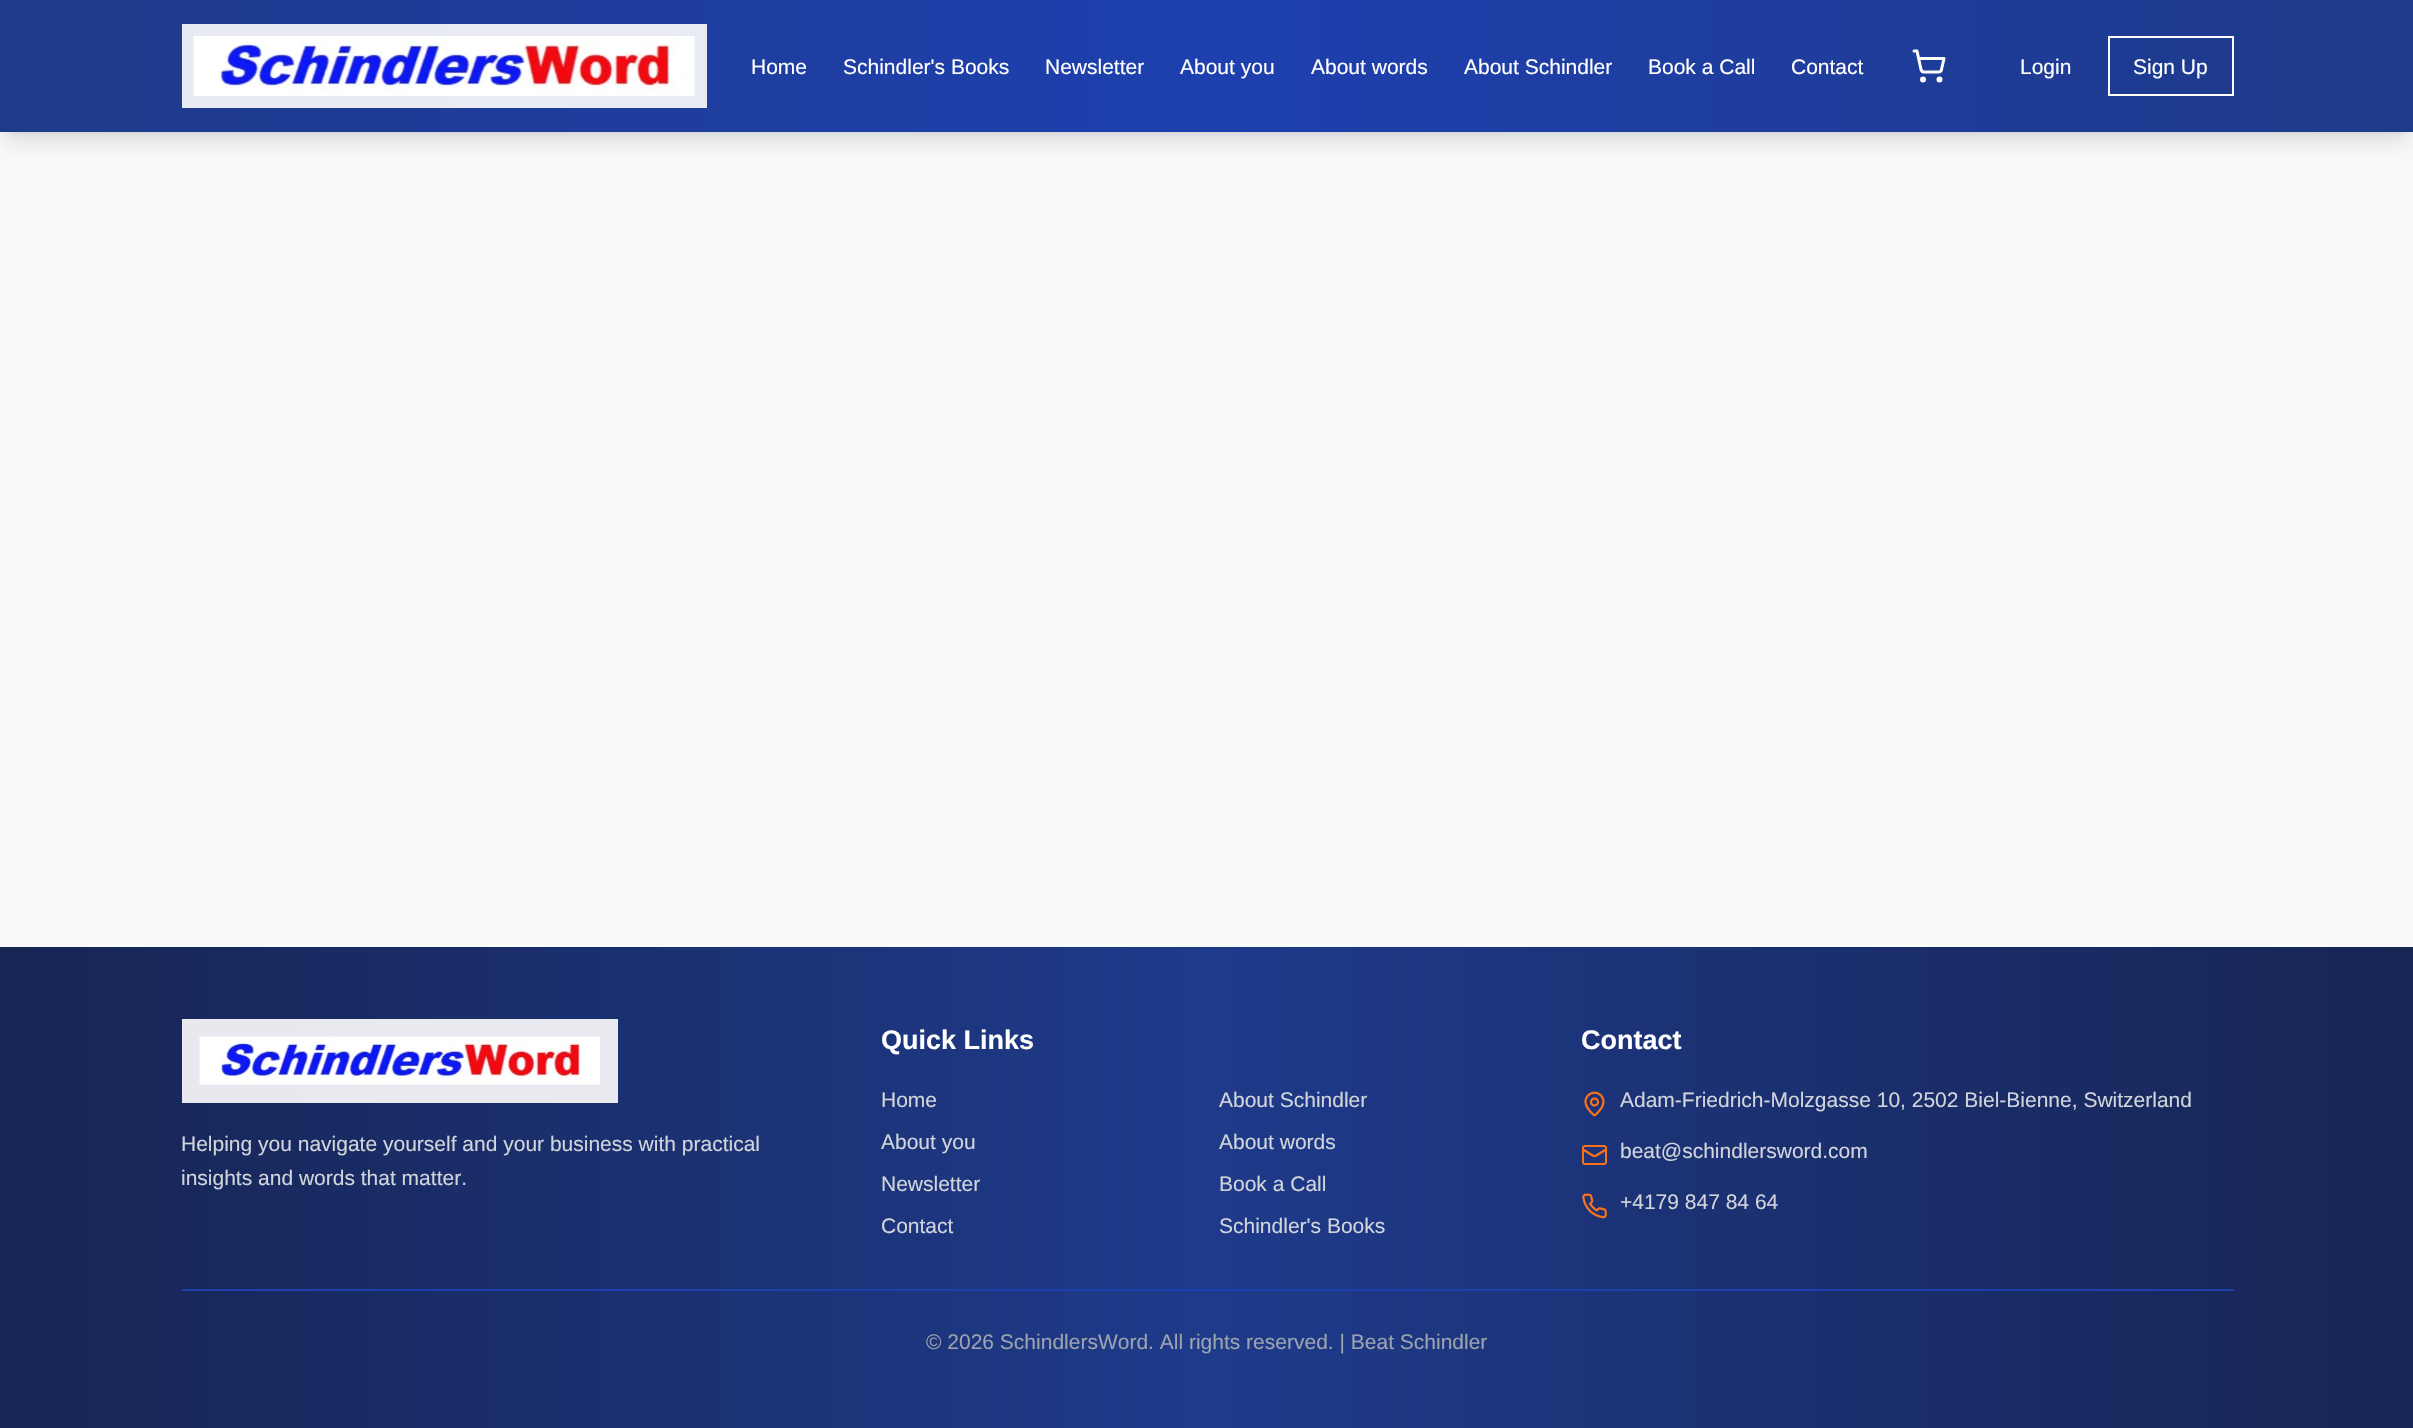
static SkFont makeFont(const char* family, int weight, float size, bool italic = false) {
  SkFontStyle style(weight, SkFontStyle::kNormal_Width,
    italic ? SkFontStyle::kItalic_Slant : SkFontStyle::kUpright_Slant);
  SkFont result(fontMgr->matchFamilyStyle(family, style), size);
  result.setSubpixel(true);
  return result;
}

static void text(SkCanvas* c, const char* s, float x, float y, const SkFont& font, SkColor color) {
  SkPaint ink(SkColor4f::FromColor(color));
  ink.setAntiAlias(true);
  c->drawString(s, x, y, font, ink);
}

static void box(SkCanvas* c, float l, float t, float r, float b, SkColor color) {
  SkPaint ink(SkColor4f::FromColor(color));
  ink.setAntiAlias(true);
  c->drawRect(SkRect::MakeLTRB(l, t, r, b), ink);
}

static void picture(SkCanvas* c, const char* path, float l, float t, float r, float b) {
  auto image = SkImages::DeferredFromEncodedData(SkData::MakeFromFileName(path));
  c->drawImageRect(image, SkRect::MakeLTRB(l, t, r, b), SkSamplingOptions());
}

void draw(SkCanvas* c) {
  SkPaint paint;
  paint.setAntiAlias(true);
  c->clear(0xfff8fafc);
  paint.setColor(0x1a000000);
  paint.setMaskFilter(SkMaskFilter::MakeBlur(kNormal_SkBlurStyle, 4.5f));
  c->drawRect(SkRect::MakeLTRB(6, 12, 2408, 132), paint);
  paint.setMaskFilter(nullptr);
  paint.setMaskFilter(SkMaskFilter::MakeBlur(kNormal_SkBlurStyle, 11));
  c->drawRect(SkRect::MakeLTRB(5, 20, 2409, 143), paint);
  paint.setMaskFilter(nullptr);
  {
    const SkColor colors[] = {0xff1e3a8a, 0xff1e40af, 0xff1e3a8a};
    const float stops[] = {0, 0.5f, 1};
    const SkPoint ends[] = {{0, 66}, {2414, 66}};
    paint.setShader(SkGradientShader::MakeLinear(ends, colors, stops, 3, SkTileMode::kClamp));
    paint.setAlpha(255);
  }
  c->drawRect(SkRect::MakeLTRB(0, 0, 2413, 132), paint);
  {
    const SkColor colors[] = {0xffe9ebf3, 0xffe9ecf7, 0xffe9ebf3};
    const float stops[] = {0, 0.5f, 1};
    const SkPoint ends[] = {{0, 66}, {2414, 66}};
    paint.setShader(SkGradientShader::MakeLinear(ends, colors, stops, 3, SkTileMode::kClamp));
    paint.setAlpha(255);
  }
  c->drawRect(SkRect::MakeLTRB(182, 24, 707, 108), paint);
  picture(c, "img_01.png", 193, 36, 695, 96);
  SkFont face1 = makeFont("Liberation Sans", 400, 21);
  text(c, "Home", 751, 74, face1, 0xffffffff);
  text(c, "Schindler's Books", 843, 74, face1, 0xffffffff);
  text(c, "Newsletter", 1045, 74, face1, 0xffffffff);
  text(c, "About you", 1180, 74, face1, 0xffffffff);
  text(c, "About words", 1311, 74, face1, 0xffffffff);
  text(c, "About Schindler", 1464, 74, face1, 0xffffffff);
  text(c, "Book a Call", 1648, 74, face1, 0xffffffff);
  text(c, "Contact", 1791, 74, face1, 0xffffffff);
  paint.setStyle(SkPaint::kStroke_Style);
  paint.setStrokeWidth(3);
  paint.setShader(nullptr);
  paint.setColor(0xffffffff);
  c->drawCircle(1923, 79.5f, 1.5f, paint);
  c->drawCircle(1939.5f, 79.5f, 1.5f, paint);
  paint.setStrokeCap(SkPaint::kRound_Cap);
  paint.setStrokeJoin(SkPaint::kRound_Join);
  c->drawPath(SkPathBuilder().moveTo(1914, 51).lineTo(1917, 51).lineTo(1921, 69.5f).cubicTo(1921.5f, 71, 1922.5f, 72, 1924, 72).lineTo(1938.5f, 72).cubicTo(1940, 72, 1941.5f, 71, 1941.5f, 69.5f).lineTo(1944, 58.5f).lineTo(1918.5f, 58.5f).detach(), paint);
  text(c, "Login", 2020, 74, face1, 0xffffffff);
  paint.setStrokeWidth(2);
  paint.setStrokeCap(SkPaint::kButt_Cap);
  paint.setStrokeJoin(SkPaint::kMiter_Join);
  c->drawRect(SkRect::MakeLTRB(2109, 37, 2233, 95), paint);
  text(c, "Sign Up", 2133, 74, face1, 0xffffffff);
  paint.setStyle(SkPaint::kFill_Style);
  {
    const SkColor colors[] = {0xff172554, 0xff1e3a8a, 0xff172554};
    const float stops[] = {0, 0.5f, 1};
    const SkPoint ends[] = {{0, 1187}, {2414, 1187}};
    paint.setShader(SkGradientShader::MakeLinear(ends, colors, stops, 3, SkTileMode::kClamp));
    paint.setAlpha(255);
  }
  c->drawRect(SkRect::MakeLTRB(0, 947, 2413, 1428), paint);
  {
    const SkColor colors[] = {0xffe8e9ee, 0xffe9ebf3, 0xffe8e9ee};
    const float stops[] = {0, 0.5f, 1};
    const SkPoint ends[] = {{0, 1187}, {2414, 1187}};
    paint.setShader(SkGradientShader::MakeLinear(ends, colors, stops, 3, SkTileMode::kClamp));
    paint.setAlpha(255);
  }
  c->drawRect(SkRect::MakeLTRB(182, 1019, 618, 1103), paint);
  picture(c, "img_02.png", 199, 1036, 600, 1085);
  text(c, "Helping you navigate yourself and your business with practical", 181, 1151, face1, 0xffd1d5db);
  text(c, "insights and words that matter.", 181, 1185, face1, 0xffd1d5db);
  SkFont face2 = makeFont("Liberation Sans", 700, 27);
  text(c, "Quick Links", 881, 1049, face2, 0xffffffff);
  text(c, "Home", 881, 1107, face1, 0xffd1d5db);
  text(c, "About Schindler", 1219, 1107, face1, 0xffd1d5db);
  text(c, "About you", 881, 1149, face1, 0xffd1d5db);
  text(c, "About words", 1219, 1149, face1, 0xffd1d5db);
  text(c, "Newsletter", 881, 1191, face1, 0xffd1d5db);
  text(c, "Book a Call", 1219, 1191, face1, 0xffd1d5db);
  text(c, "Contact", 881, 1233, face1, 0xffd1d5db);
  text(c, "Schindler's Books", 1219, 1233, face1, 0xffd1d5db);
  text(c, "Contact", 1581, 1049, face2, 0xffffffff);
  picture(c, "img_03.png", 1584, 1091, 1605, 1117);
  text(c, "Adam-Friedrich-Molzgasse 10, 2502 Biel-Bienne, Switzerland", 1620, 1107, face1, 0xffd1d5db);
  paint.setStyle(SkPaint::kStroke_Style);
  paint.setShader(nullptr);
  paint.setColor(0xfff97316);
  c->drawRoundRect(SkRect::MakeLTRB(1583, 1146, 1606, 1164), 2, 2, paint);
  paint.setStrokeWidth(2.2f);
  paint.setStrokeCap(SkPaint::kRound_Cap);
  paint.setStrokeJoin(SkPaint::kRound_Join);
  c->drawPath(SkPathBuilder().moveTo(1606, 1149.5f).lineTo(1595.5f, 1156).cubicTo(1595, 1156, 1594, 1156, 1593.5f, 1156).lineTo(1583, 1149.5f).detach(), paint);
  text(c, "beat@schindlersword.com", 1620, 1158, face1, 0xffd1d5db);
  picture(c, "img_04.png", 1582, 1193, 1607, 1219);
  text(c, "+4179 847 84 64", 1620, 1209, face1, 0xffd1d5db);
  box(c, 182, 1289, 2234, 1291, 0xff1e40af);
  text(c, "© 2026 SchindlersWord. All rights reserved. | Beat Schindler", 926, 1349, face1, 0xff9ca3af);
}
